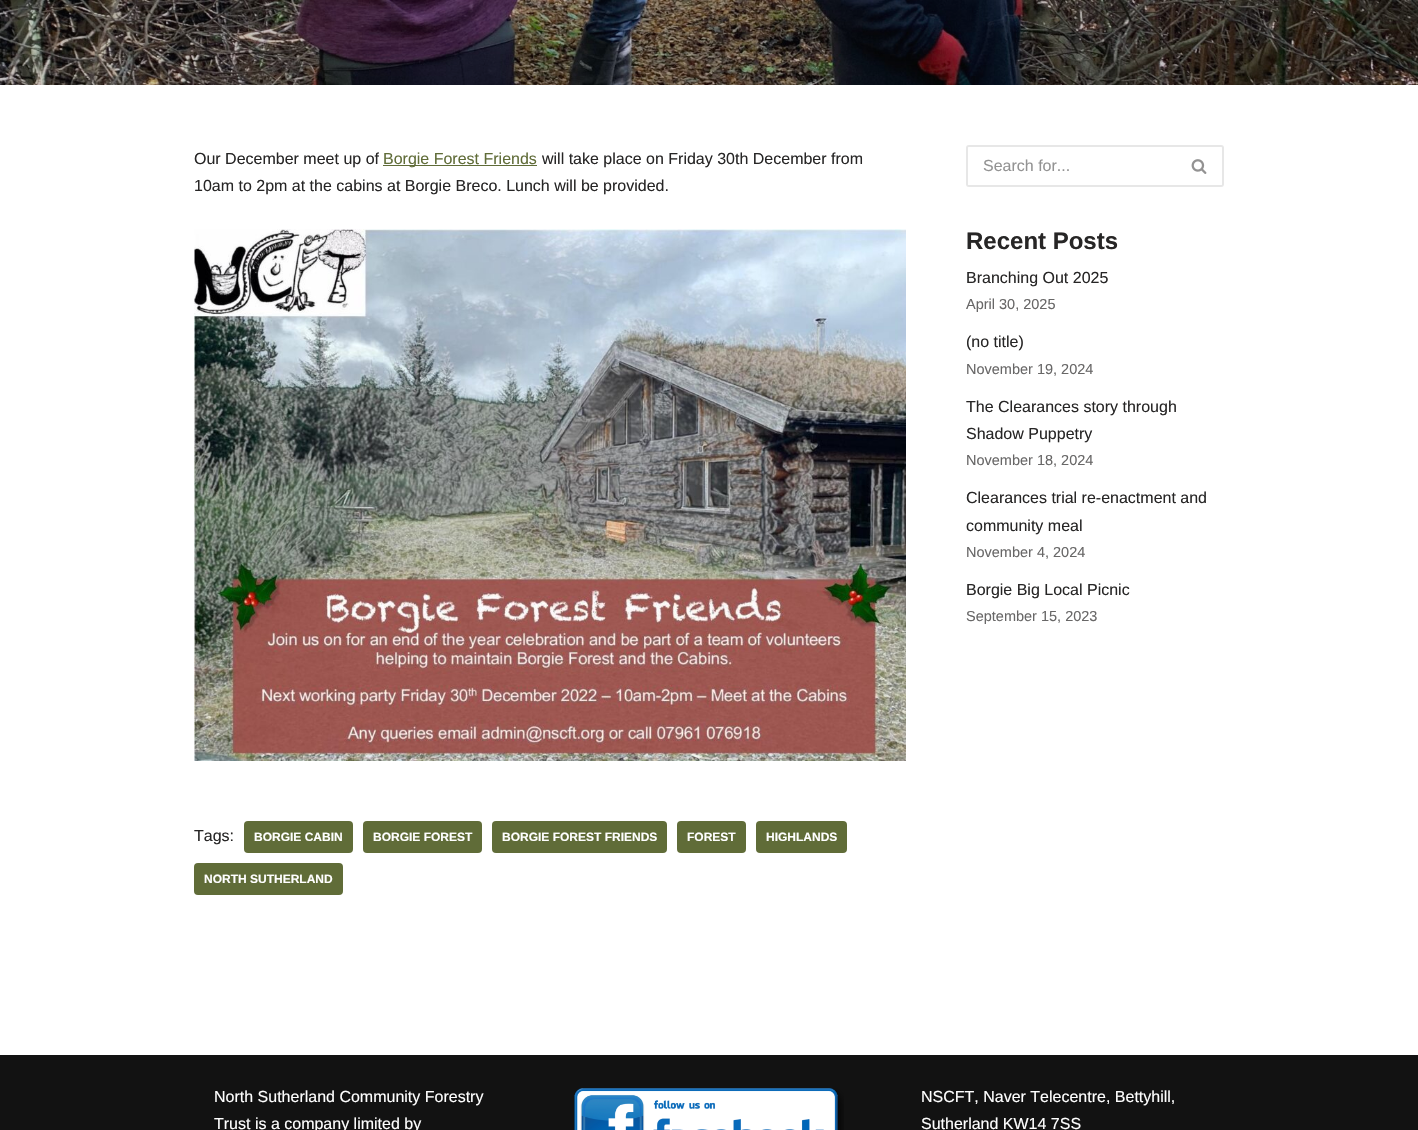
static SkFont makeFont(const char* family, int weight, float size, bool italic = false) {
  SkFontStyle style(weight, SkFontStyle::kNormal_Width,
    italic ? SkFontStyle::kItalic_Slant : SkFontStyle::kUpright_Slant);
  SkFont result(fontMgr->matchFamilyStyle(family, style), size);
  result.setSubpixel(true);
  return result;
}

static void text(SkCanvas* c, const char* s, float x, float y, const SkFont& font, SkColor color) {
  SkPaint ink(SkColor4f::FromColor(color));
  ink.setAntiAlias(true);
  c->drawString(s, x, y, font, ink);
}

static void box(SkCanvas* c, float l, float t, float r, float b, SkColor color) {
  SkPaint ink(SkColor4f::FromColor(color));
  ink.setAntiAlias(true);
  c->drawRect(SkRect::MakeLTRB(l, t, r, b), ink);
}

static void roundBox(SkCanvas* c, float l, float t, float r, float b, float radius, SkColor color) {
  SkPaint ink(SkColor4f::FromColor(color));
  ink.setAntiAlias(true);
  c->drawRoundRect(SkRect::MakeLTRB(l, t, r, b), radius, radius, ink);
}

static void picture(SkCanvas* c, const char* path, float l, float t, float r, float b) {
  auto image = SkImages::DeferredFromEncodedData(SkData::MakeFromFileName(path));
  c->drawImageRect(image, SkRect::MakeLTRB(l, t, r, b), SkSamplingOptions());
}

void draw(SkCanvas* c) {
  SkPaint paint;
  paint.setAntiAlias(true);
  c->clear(0xffffffff);
  picture(c, "img_01.png", 0, 0, 1418, 85);
  SkFont face1 = makeFont("Liberation Sans", 400, 16);
  text(c, "Our December meet up of", 194, 164, face1, 0xff272626);
  box(c, 383, 165, 537, 166, 0xff606c38);
  text(c, "Borgie Forest Friends", 383, 164, face1, 0xff606c38);
  text(c, "will take place on Friday 30th December from", 542, 164, face1, 0xff272626);
  text(c, "10am to 2pm at the cabins at Borgie Breco. Lunch will be provided.", 194, 191, face1, 0xff272626);
  picture(c, "img_02.png", 194, 229, 906, 761);
  text(c, "Tags:", 194, 841, face1, 0xff272626);
  roundBox(c, 244, 821, 353, 853, 4, 0xff606c38);
  SkFont face2 = makeFont("Liberation Sans", 700, 12);
  text(c, "BORGIE CABIN", 254, 841, face2, 0xffffffff);
  roundBox(c, 363, 821, 482, 853, 4, 0xff606c38);
  text(c, "BORGIE FOREST", 373, 841, face2, 0xffffffff);
  roundBox(c, 492, 821, 667, 853, 4, 0xff606c38);
  text(c, "BORGIE FOREST FRIENDS", 502, 841, face2, 0xffffffff);
  roundBox(c, 677, 821, 746, 853, 4, 0xff606c38);
  text(c, "FOREST", 687, 841, face2, 0xffffffff);
  roundBox(c, 756, 821, 847, 853, 4, 0xff606c38);
  text(c, "HIGHLANDS", 766, 841, face2, 0xffffffff);
  roundBox(c, 194, 863, 343, 895, 4, 0xff606c38);
  text(c, "NORTH SUTHERLAND", 204, 883, face2, 0xffffffff);
  paint.setColor(0xffe7e7e7);
  c->drawPath(SkPathBuilder(SkPathFillType::kEvenOdd).moveTo(969, 145).lineTo(1176, 145).lineTo(1176, 187).lineTo(969, 187).cubicTo(967, 187, 966, 186, 966, 184).lineTo(966, 148).cubicTo(966, 146, 967, 145, 969, 145).close().moveTo(969, 147).lineTo(1176, 147).lineTo(1176, 185).lineTo(969, 185).cubicTo(968, 185, 968, 185, 968, 184).lineTo(968, 148).cubicTo(968, 147, 968, 147, 969, 147).close().detach(), paint);
  text(c, "Search for...", 983, 171, face1, 0xff939393);
  c->drawPath(SkPathBuilder(SkPathFillType::kEvenOdd).moveTo(1176, 145).lineTo(1221, 145).cubicTo(1223, 145, 1224, 146, 1224, 148).lineTo(1224, 184).cubicTo(1224, 186, 1223, 187, 1221, 187).lineTo(1176, 187).close().moveTo(1176, 147).lineTo(1221, 147).cubicTo(1222, 147, 1222, 147, 1222, 148).lineTo(1222, 184).cubicTo(1222, 185, 1222, 185, 1221, 185).lineTo(1176, 185).close().detach(), paint);
  picture(c, "img_03.png", 1191, 159, 1207, 174);
  SkFont face3 = makeFont("Liberation Sans", 700, 24);
  text(c, "Recent Posts", 966, 249, face3, 0xff272626);
  text(c, "Branching Out 2025", 966, 283, face1, 0xff272626);
  SkFont face4 = makeFont("Liberation Sans", 400, 14.5f);
  text(c, "April 30, 2025", 966, 309, face4, 0xff686767);
  text(c, "(no title)", 966, 347, face1, 0xff272626);
  text(c, "November 19, 2024", 966, 374, face4, 0xff686767);
  text(c, "The Clearances story through", 966, 412, face1, 0xff272626);
  text(c, "Shadow Puppetry", 966, 439, face1, 0xff272626);
  text(c, "November 18, 2024", 966, 465, face4, 0xff686767);
  text(c, "Clearances trial re-enactment and", 966, 503, face1, 0xff272626);
  text(c, "community meal", 966, 531, face1, 0xff272626);
  text(c, "November 4, 2024", 966, 557, face4, 0xff686767);
  text(c, "Borgie Big Local Picnic", 966, 595, face1, 0xff272626);
  text(c, "September 15, 2023", 966, 621, face4, 0xff686767);
  box(c, 0, 1055, 1418, 1130, 0xff121212);
  text(c, "North Sutherland Community Forestry", 214, 1102, face1, 0xffffffff);
  text(c, "Trust is a company limited by", 214, 1129, face1, 0xffffffff);
  picture(c, "img_04.png", 574, 1088, 844, 1130);
  text(c, "NSCFT, Naver Telecentre, Bettyhill,", 921, 1102, face1, 0xffffffff);
  text(c, "Sutherland KW14 7SS", 921, 1129, face1, 0xffffffff);
}
